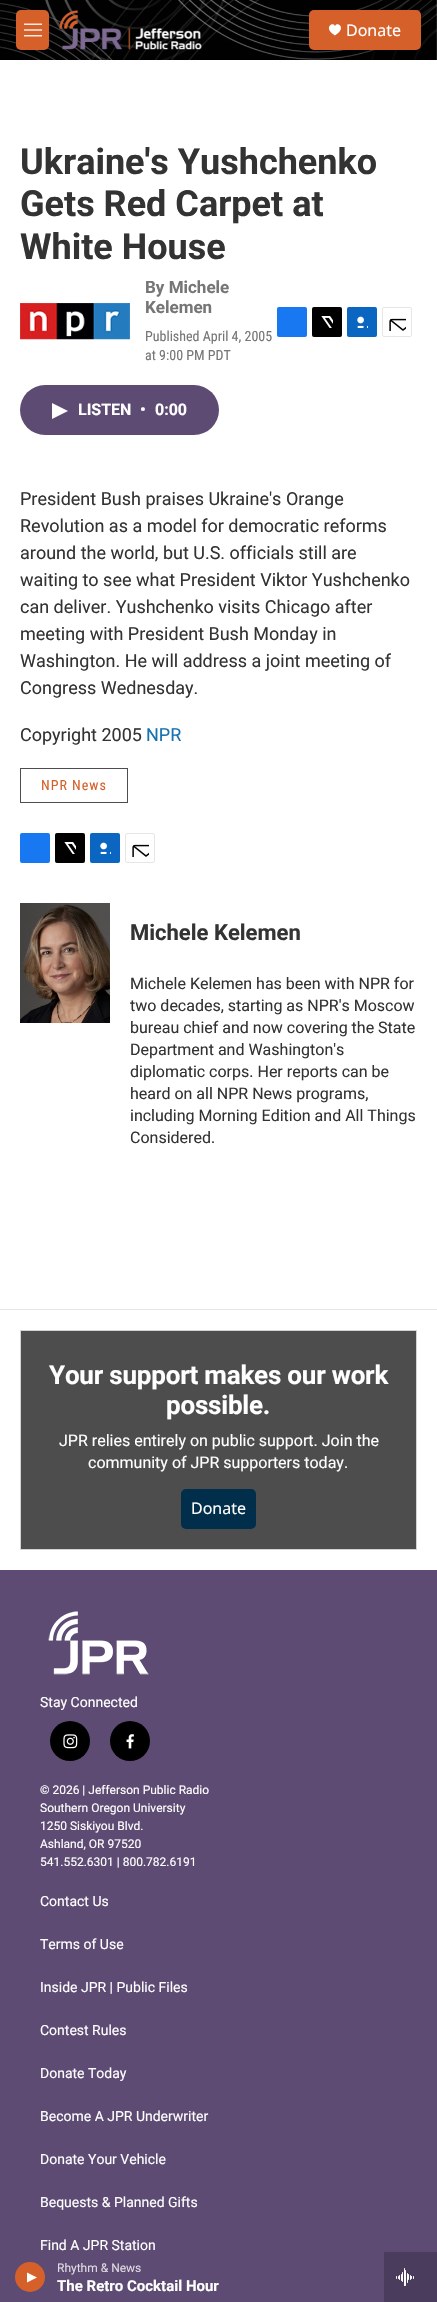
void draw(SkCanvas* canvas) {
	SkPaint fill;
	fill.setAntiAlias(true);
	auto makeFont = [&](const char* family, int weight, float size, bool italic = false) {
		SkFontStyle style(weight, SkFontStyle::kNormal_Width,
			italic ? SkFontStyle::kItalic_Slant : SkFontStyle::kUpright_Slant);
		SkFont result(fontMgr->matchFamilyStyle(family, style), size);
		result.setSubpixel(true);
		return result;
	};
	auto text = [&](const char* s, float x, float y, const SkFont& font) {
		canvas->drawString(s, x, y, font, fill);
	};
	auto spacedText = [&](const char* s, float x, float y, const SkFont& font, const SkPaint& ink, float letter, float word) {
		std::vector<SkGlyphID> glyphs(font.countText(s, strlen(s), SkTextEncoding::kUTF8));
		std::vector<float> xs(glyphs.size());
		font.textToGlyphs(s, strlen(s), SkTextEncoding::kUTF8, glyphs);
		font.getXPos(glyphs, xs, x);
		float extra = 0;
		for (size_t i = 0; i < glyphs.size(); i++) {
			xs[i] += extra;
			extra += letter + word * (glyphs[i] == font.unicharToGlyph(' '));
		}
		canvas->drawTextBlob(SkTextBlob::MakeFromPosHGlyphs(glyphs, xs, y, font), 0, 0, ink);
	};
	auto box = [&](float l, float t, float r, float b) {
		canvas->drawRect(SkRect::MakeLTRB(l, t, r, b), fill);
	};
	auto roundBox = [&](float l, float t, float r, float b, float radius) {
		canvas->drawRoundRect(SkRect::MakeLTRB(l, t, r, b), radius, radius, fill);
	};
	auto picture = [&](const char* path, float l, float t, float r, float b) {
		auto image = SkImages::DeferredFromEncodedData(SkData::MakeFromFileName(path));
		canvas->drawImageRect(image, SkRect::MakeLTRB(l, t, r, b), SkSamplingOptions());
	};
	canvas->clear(0xFFFFFFFF);
	picture("image0.png", 0, 0, 437, 60);
	fill.setColor(0xFFD5602A);
	roundBox(16, 10, 49, 50, 5);
	picture("image1.png", 24, 23, 42, 37);
	picture("image2.png", 59, 10, 202, 50);
	roundBox(309, 10, 421, 50, 5);
	fill.setColor(0xFFFFFFFF);
	canvas->drawPath(SkPathBuilder().moveTo(335, 26).cubicTo(333, 21, 322.5f, 28, 335, 35.5f).cubicTo(347.5f, 28, 337, 21, 335, 26).close().detach(), fill);
	fill.setColor(0xFF5D4B73);
	box(0, 2252, 384, 2302);
	fill.setColor(0xFFD5602A);
	canvas->drawCircle(30, 2277, 15, fill);
	fill.setColor(0xFFFFFFFF);
	canvas->drawPath(SkPathBuilder().moveTo(27, 2272.5f).lineTo(37, 2277.5f).lineTo(27, 2282.5f).close().detach(), fill);
	fill.setColor(0xFF4A3C5C);
	box(384, 2252, 437, 2302);
	picture("image3.png", 396, 2268, 414, 2286);
	picture("image4.png", 20, 303, 130, 340);
	fill.setColor(0xFF1778F2);
	roundBox(277, 307, 307, 337, 2);
	fill.setColor(0xFF000000);
	roundBox(312, 307, 342, 337, 2);
	picture("image5.png", 321, 316, 333, 328);
	fill.setColor(0xFF0A66C1);
	roundBox(347, 307, 377, 337, 2);
	picture("image6.png", 357, 316, 368, 328);
	fill.setStyle(SkPaint::kStroke_Style);
	fill.setStrokeWidth(1);
	fill.setColor(0xFFE6E6E6);
	canvas->drawRoundRect(SkRect::MakeLTRB(382.5f, 307.5f, 411.5f, 336.5f), 1.5f, 1.5f, fill);
	picture("image7.png", 389, 318, 406, 331);
	fill.setStyle(SkPaint::kFill_Style);
	fill.setColor(0xFF5D4B73);
	roundBox(20, 385, 219, 435, 25);
	fill.setColor(0xFFFFFFFF);
	canvas->drawPath(SkPathBuilder().moveTo(52, 403).lineTo(68, 411).lineTo(52, 419).close().detach(), fill);
	fill.setStyle(SkPaint::kStroke_Style);
	fill.setColor(0xFF4E4B51);
	canvas->drawRect(SkRect::MakeLTRB(20.5f, 768.5f, 127.5f, 802.5f), fill);
	fill.setStyle(SkPaint::kFill_Style);
	fill.setColor(0xFF1778F2);
	roundBox(20, 833, 50, 863, 2);
	fill.setColor(0xFF000000);
	roundBox(55, 833, 85, 863, 2);
	picture("image5.png", 64, 842, 76, 854);
	fill.setColor(0xFF0A66C1);
	roundBox(90, 833, 120, 863, 2);
	picture("image6.png", 100, 842, 111, 854);
	fill.setStyle(SkPaint::kStroke_Style);
	fill.setColor(0xFFE6E6E6);
	canvas->drawRoundRect(SkRect::MakeLTRB(125.5f, 833.5f, 154.5f, 862.5f), 1.5f, 1.5f, fill);
	picture("image7.png", 132, 844, 149, 857);
	picture("image8.png", 20, 903, 110, 1023);
	fill.setStyle(SkPaint::kFill_Style);
	box(0, 1309, 437, 1310);
	fill.setColor(0xFF4D4D4D);
	canvas->drawRect(SkRect::MakeLTRB(20.5f, 1330.5f, 416.5f, 1549.5f), fill);
	fill.setStyle(SkPaint::kStroke_Style);
	fill.setColor(0xFFD3D3D3);
	canvas->drawRect(SkRect::MakeLTRB(20.5f, 1330.5f, 416.5f, 1549.5f), fill);
	fill.setStyle(SkPaint::kFill_Style);
	fill.setColor(0xFF002E4B);
	roundBox(181, 1489, 256, 1529, 5);
	fill.setColor(0xFF5D4B73);
	box(0, 1570, 437, 2252);
	picture("image9.png", 48, 1611, 149, 1675);
	fill.setColor(0xFF000000);
	canvas->drawCircle(70, 1741, 20, fill);
	picture("image10.png", 63, 1734, 78, 1749);
	canvas->drawCircle(130, 1741, 20, fill);
	picture("image11.png", 126, 1734, 134, 1749);
	auto font1 = makeFont("Noto Sans", 400, 16);
	fill.setColor(0xFFFFFFFF);
	text("Donate", 346, 36, font1);
	auto font2 = makeFont("Roboto", 400, 12);
	fill.setColor(0xFFDFDBE3);
	text("Rhythm & News", 57, 2272, font2);
	auto font3 = makeFont("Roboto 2", 700, 15);
	fill.setColor(0xFFFFFFFF);
	text("The Retro Cocktail Hour", 57, 2291, font3);
	auto font4 = makeFont("Roboto", 700, 36);
	fill.setColor(0xFF333333);
	text("Ukraine's Yushchenko", 20, 174, font4);
	text("Gets Red Carpet at", 20, 216, font4);
	text("White House", 20, 259, font4);
	auto font5 = makeFont("Roboto", 700, 17);
	fill.setColor(0xFF767676);
	text("By Michele", 145, 293, font5);
	text("Kelemen", 145, 313, font5);
	auto font6 = makeFont("Roboto Condensed", 400, 14);
	text("Published April 4, 2005", 145, 341, font6);
	text("at 9:00 PM PDT", 145, 360, font6);
	auto font7 = makeFont("Roboto 2", 700, 16);
	fill.setColor(0xFFFFFFFF);
	text("LISTEN", 78, 415, font7);
	text("•", 140, 415, font7);
	text("0:00", 155, 415, font7);
	auto font8 = makeFont("Roboto", 400, 18);
	fill.setColor(0xFF333333);
	text("President Bush praises Ukraine's Orange", 20, 505, font8);
	text("Revolution as a model for democratic reforms", 20, 532, font8);
	text("around the world, but U.S. officials still are", 20, 559, font8);
	text("waiting to see what President Viktor Yushchenko", 20, 586, font8);
	text("can deliver. Yushchenko visits Chicago after", 20, 613, font8);
	text("meeting with President Bush Monday in", 20, 640, font8);
	text("Washington. He will address a joint meeting of", 20, 667, font8);
	text("Congress Wednesday.", 20, 694, font8);
	text("Copyright 2005", 20, 741, font8);
	fill.setColor(0xFF1772B0);
	text("NPR", 146, 741, font8);
	fill.setColor(0xFFD5602A);
	spacedText("NPR News", 41, 790, font6, fill, 1, 0);
	auto font9 = makeFont("Roboto", 700, 22);
	fill.setColor(0xFF333333);
	text("Michele Kelemen", 130, 940, font9);
	auto font10 = makeFont("Roboto", 400, 16);
	text("Michele Kelemen has been with NPR for", 130, 989, font10);
	text("two decades, starting as NPR's Moscow", 130, 1011, font10);
	text("bureau chief and now covering the State", 130, 1033, font10);
	text("Department and Washington's", 130, 1055, font10);
	text("diplomatic corps. Her reports can be", 130, 1077, font10);
	text("heard on all NPR News programs,", 130, 1099, font10);
	text("including Morning Edition and All Things", 130, 1121, font10);
	text("Considered.", 130, 1143, font10);
	auto font11 = makeFont("Roboto", 700, 26);
	fill.setColor(0xFFFFFFFF);
	spacedText("Your support makes our work", 49, 1384, font11, fill, -0.2f, 0);
	spacedText("possible.", 166, 1414, font11, fill, -0.2f, 0);
	text("JPR relies entirely on public support. Join the", 59, 1446, font10);
	text("community of JPR supporters today.", 88, 1468, font10);
	text("Donate", 191, 1514, font1);
	auto font12 = makeFont("Roboto", 400, 14);
	text("Stay Connected", 40, 1707, font12);
	text("© 2026 | Jefferson Public Radio", 40, 1794, font2);
	text("Southern Oregon University", 40, 1812, font2);
	text("1250 Siskiyou Blvd.", 40, 1830, font2);
	text("Ashland, OR 97520", 40, 1848, font2);
	text("541.552.6301 | 800.782.6191", 40, 1866, font2);
	text("Contact Us", 40, 1906, font12);
	text("Terms of Use", 40, 1949, font12);
	text("Inside JPR | Public Files", 40, 1992, font12);
	text("Contest Rules", 40, 2035, font12);
	text("Donate Today", 40, 2078, font12);
	text("Become A JPR Underwriter", 40, 2121, font12);
	text("Donate Your Vehicle", 40, 2164, font12);
	text("Bequests & Planned Gifts", 40, 2207, font12);
	text("Find A JPR Station", 40, 2250, font12);
}
